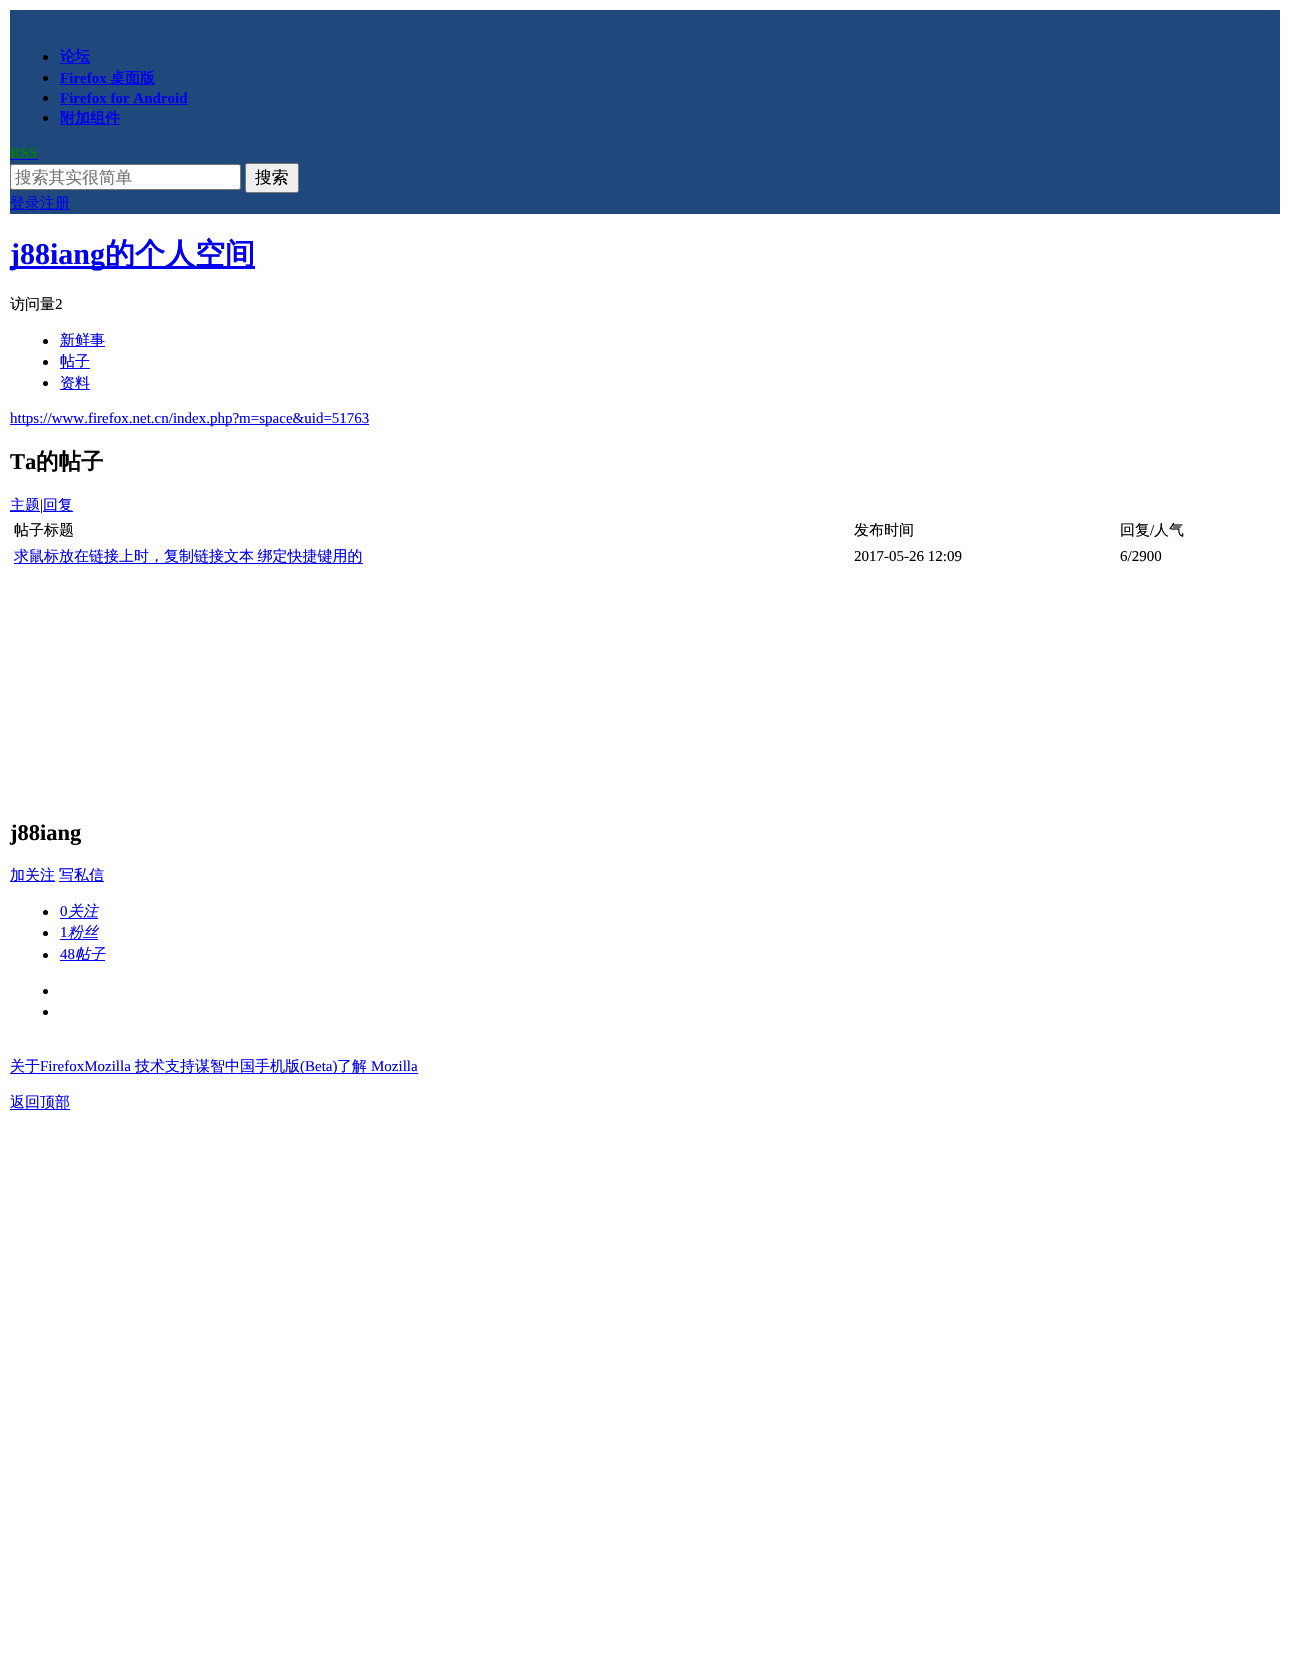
void draw(SkCanvas* canvas) {
	SkPaint fill;
	fill.setAntiAlias(true);
	auto makeFont = [&](const char* family, int weight, float size, bool italic = false) {
		SkFontStyle style(weight, SkFontStyle::kNormal_Width,
			italic ? SkFontStyle::kItalic_Slant : SkFontStyle::kUpright_Slant);
		SkFont result(fontMgr->matchFamilyStyle(family, style), size);
		result.setSubpixel(true);
		return result;
	};
	auto text = [&](const char* s, float x, float y, const SkFont& font) {
		canvas->drawString(s, x, y, font, fill);
	};
	auto spacedText = [&](const char* s, float x, float y, const SkFont& font, const SkPaint& ink, float letter, float word) {
		std::vector<SkGlyphID> glyphs(font.countText(s, strlen(s), SkTextEncoding::kUTF8));
		std::vector<float> xs(glyphs.size());
		font.textToGlyphs(s, strlen(s), SkTextEncoding::kUTF8, glyphs);
		font.getXPos(glyphs, xs, x);
		float extra = 0;
		for (size_t i = 0; i < glyphs.size(); i++) {
			xs[i] += extra;
			extra += letter + word * (glyphs[i] == font.unicharToGlyph(' '));
		}
		canvas->drawTextBlob(SkTextBlob::MakeFromPosHGlyphs(glyphs, xs, y, font), 0, 0, ink);
	};
	auto box = [&](float l, float t, float r, float b) {
		canvas->drawRect(SkRect::MakeLTRB(l, t, r, b), fill);
	};
	canvas->clear(0xFFFFFFFF);
	fill.setColor(0xFF1F497D);
	box(10, 10, 1280, 214);
	fill.setColor(0xFF000000);
	canvas->drawCircle(45.5f, 57.5f, 2.5f, fill);
	fill.setColor(0xFF0000EE);
	box(60, 63, 90, 64);
	fill.setColor(0xFF000000);
	canvas->drawCircle(45.5f, 78.5f, 2.5f, fill);
	fill.setColor(0xFF0000EE);
	box(60, 84, 155, 85);
	fill.setColor(0xFF000000);
	canvas->drawCircle(45.5f, 98.5f, 2.5f, fill);
	fill.setColor(0xFF0000EE);
	box(60, 104, 188, 105);
	fill.setColor(0xFF000000);
	canvas->drawCircle(45.5f, 118.5f, 2.5f, fill);
	fill.setColor(0xFF0000EE);
	box(60, 124, 120, 125);
	box(10, 159, 38, 160);
	fill.setColor(0xFFFFFFFF);
	canvas->drawRoundRect(SkRect::MakeLTRB(10.5f, 164.5f, 240.5f, 189.5f), 2, 2, fill);
	fill.setStyle(SkPaint::kStroke_Style);
	fill.setStrokeWidth(1);
	fill.setColor(0xFF767676);
	canvas->drawRoundRect(SkRect::MakeLTRB(10.5f, 164.5f, 240.5f, 189.5f), 2, 2, fill);
	fill.setStyle(SkPaint::kFill_Style);
	fill.setColor(0xFFEFEFEF);
	canvas->drawRoundRect(SkRect::MakeLTRB(245.5f, 163.5f, 298.5f, 192.5f), 2, 2, fill);
	fill.setStyle(SkPaint::kStroke_Style);
	fill.setColor(0xFF767676);
	canvas->drawRoundRect(SkRect::MakeLTRB(245.5f, 163.5f, 298.5f, 192.5f), 2, 2, fill);
	fill.setStyle(SkPaint::kFill_Style);
	fill.setColor(0xFF0000EE);
	box(10, 209, 70, 210);
	box(10, 266, 255, 269);
	fill.setColor(0xFF000000);
	canvas->drawCircle(45.5f, 341.5f, 2.5f, fill);
	fill.setColor(0xFF0000EE);
	box(60, 346, 105, 347);
	fill.setColor(0xFF000000);
	canvas->drawCircle(45.5f, 362.5f, 2.5f, fill);
	fill.setColor(0xFF0000EE);
	box(60, 368, 90, 369);
	fill.setColor(0xFF000000);
	canvas->drawCircle(45.5f, 383.5f, 2.5f, fill);
	fill.setColor(0xFF0000EE);
	box(60, 389, 90, 390);
	box(10, 424, 369, 425);
	box(10, 511, 40, 512);
	box(43, 511, 73, 512);
	box(14, 563, 363, 564);
	box(10, 881, 55, 882);
	box(59, 881, 104, 882);
	fill.setColor(0xFF000000);
	canvas->drawCircle(45.5f, 912.5f, 2.5f, fill);
	fill.setColor(0xFF0000EE);
	box(60, 918, 98, 919);
	fill.setColor(0xFF000000);
	canvas->drawCircle(45.5f, 933.5f, 2.5f, fill);
	fill.setColor(0xFF0000EE);
	box(60, 939, 98, 940);
	fill.setColor(0xFF000000);
	canvas->drawCircle(45.5f, 955.5f, 2.5f, fill);
	fill.setColor(0xFF0000EE);
	box(60, 960, 105, 961);
	fill.setColor(0xFF000000);
	canvas->drawCircle(45.5f, 991.5f, 2.5f, fill);
	canvas->drawCircle(45.5f, 1012.5f, 2.5f, fill);
	fill.setColor(0xFF0000EE);
	box(10, 1073, 418, 1074);
	box(10, 1109, 70, 1110);
	auto font1 = makeFont("WenQuanYi Zen Hei", 700, 15);
	text("论坛", 60, 61, font1);
	auto font2 = makeFont("Liberation Serif", 700, 15);
	text("Firefox", 60, 83, font2);
	text("桌面版", 110, 83, font1);
	text("Firefox for Android", 60, 103, font2);
	text("附加组件", 60, 123, font1);
	fill.setColor(0xFF008000);
	text("RSS", 10, 158, font2);
	auto font3 = makeFont("WenQuanYi Zen Hei", 500, 16.75f);
	fill.setColor(0xFF757575);
	text("搜索其实很简单", 15, 183, font3);
	fill.setColor(0xFF000000);
	text("搜索", 255, 183, font3);
	auto font4 = makeFont("WenQuanYi Zen Hei", 500, 15);
	fill.setColor(0xFF0000EE);
	text("登录注册", 10, 208, font4);
	auto font5 = makeFont("Liberation Serif", 700, 30);
	text("j88iang", 10, 264, font5);
	auto font6 = makeFont("WenQuanYi Zen Hei", 700, 30);
	text("的个人空间", 105, 264, font6);
	fill.setColor(0xFF000000);
	text("访问量", 10, 309, font4);
	auto font7 = makeFont("Liberation Serif", 400, 15);
	text("2", 55, 309, font7);
	fill.setColor(0xFF0000EE);
	text("新鲜事", 60, 345, font4);
	text("帖子", 60, 366, font4);
	text("资料", 60, 388, font4);
	text("https://www.firefox.net.cn/index.php?m=space&uid=51763", 10, 423, font7);
	auto font8 = makeFont("Liberation Serif", 700, 22.5f);
	fill.setColor(0xFF000000);
	text("Ta", 10, 469, font8);
	auto font9 = makeFont("WenQuanYi Zen Hei", 700, 22.5f);
	text("的帖子", 36, 469, font9);
	fill.setColor(0xFF0000EE);
	text("主题", 10, 510, font4);
	fill.setColor(0xFF000000);
	text("|", 40, 510, font7);
	fill.setColor(0xFF0000EE);
	text("回复", 43, 510, font4);
	fill.setColor(0xFF000000);
	text("帖子标题", 14, 535, font4);
	text("发布时间", 854, 535, font4);
	text("回复", 1120, 535, font4);
	text("/", 1150, 535, font7);
	text("人气", 1154, 535, font4);
	fill.setColor(0xFF0000EE);
	spacedText("求鼠标放在链接上时，复制链接文本 绑定快捷键用的", 14, 561, font4, fill, 0, -1);
	fill.setColor(0xFF000000);
	text("2017-05-26 12:09", 854, 561, font7);
	text("6/2900", 1120, 561, font7);
	text("j88iang", 10, 840, font8);
	fill.setColor(0xFF0000EE);
	text("加关注", 10, 880, font4);
	text("写私信", 59, 880, font4);
	text("0", 60, 916, font7);
	auto font10 = makeFont("WenQuanYi Zen Hei", 500, 15, true);
	text("关注", 68, 916, font10);
	text("1", 60, 937, font7);
	text("粉丝", 68, 937, font10);
	text("48", 60, 959, font7);
	text("帖子", 75, 959, font10);
	text("关于", 10, 1071, font4);
	text("FirefoxMozilla", 40, 1071, font7);
	text("技术支持谋智中国手机版", 135, 1071, font4);
	text("(Beta)", 300, 1071, font7);
	text("了解", 337, 1071, font4);
	text("Mozilla", 371, 1071, font7);
	text("返回顶部", 10, 1107, font4);
}
